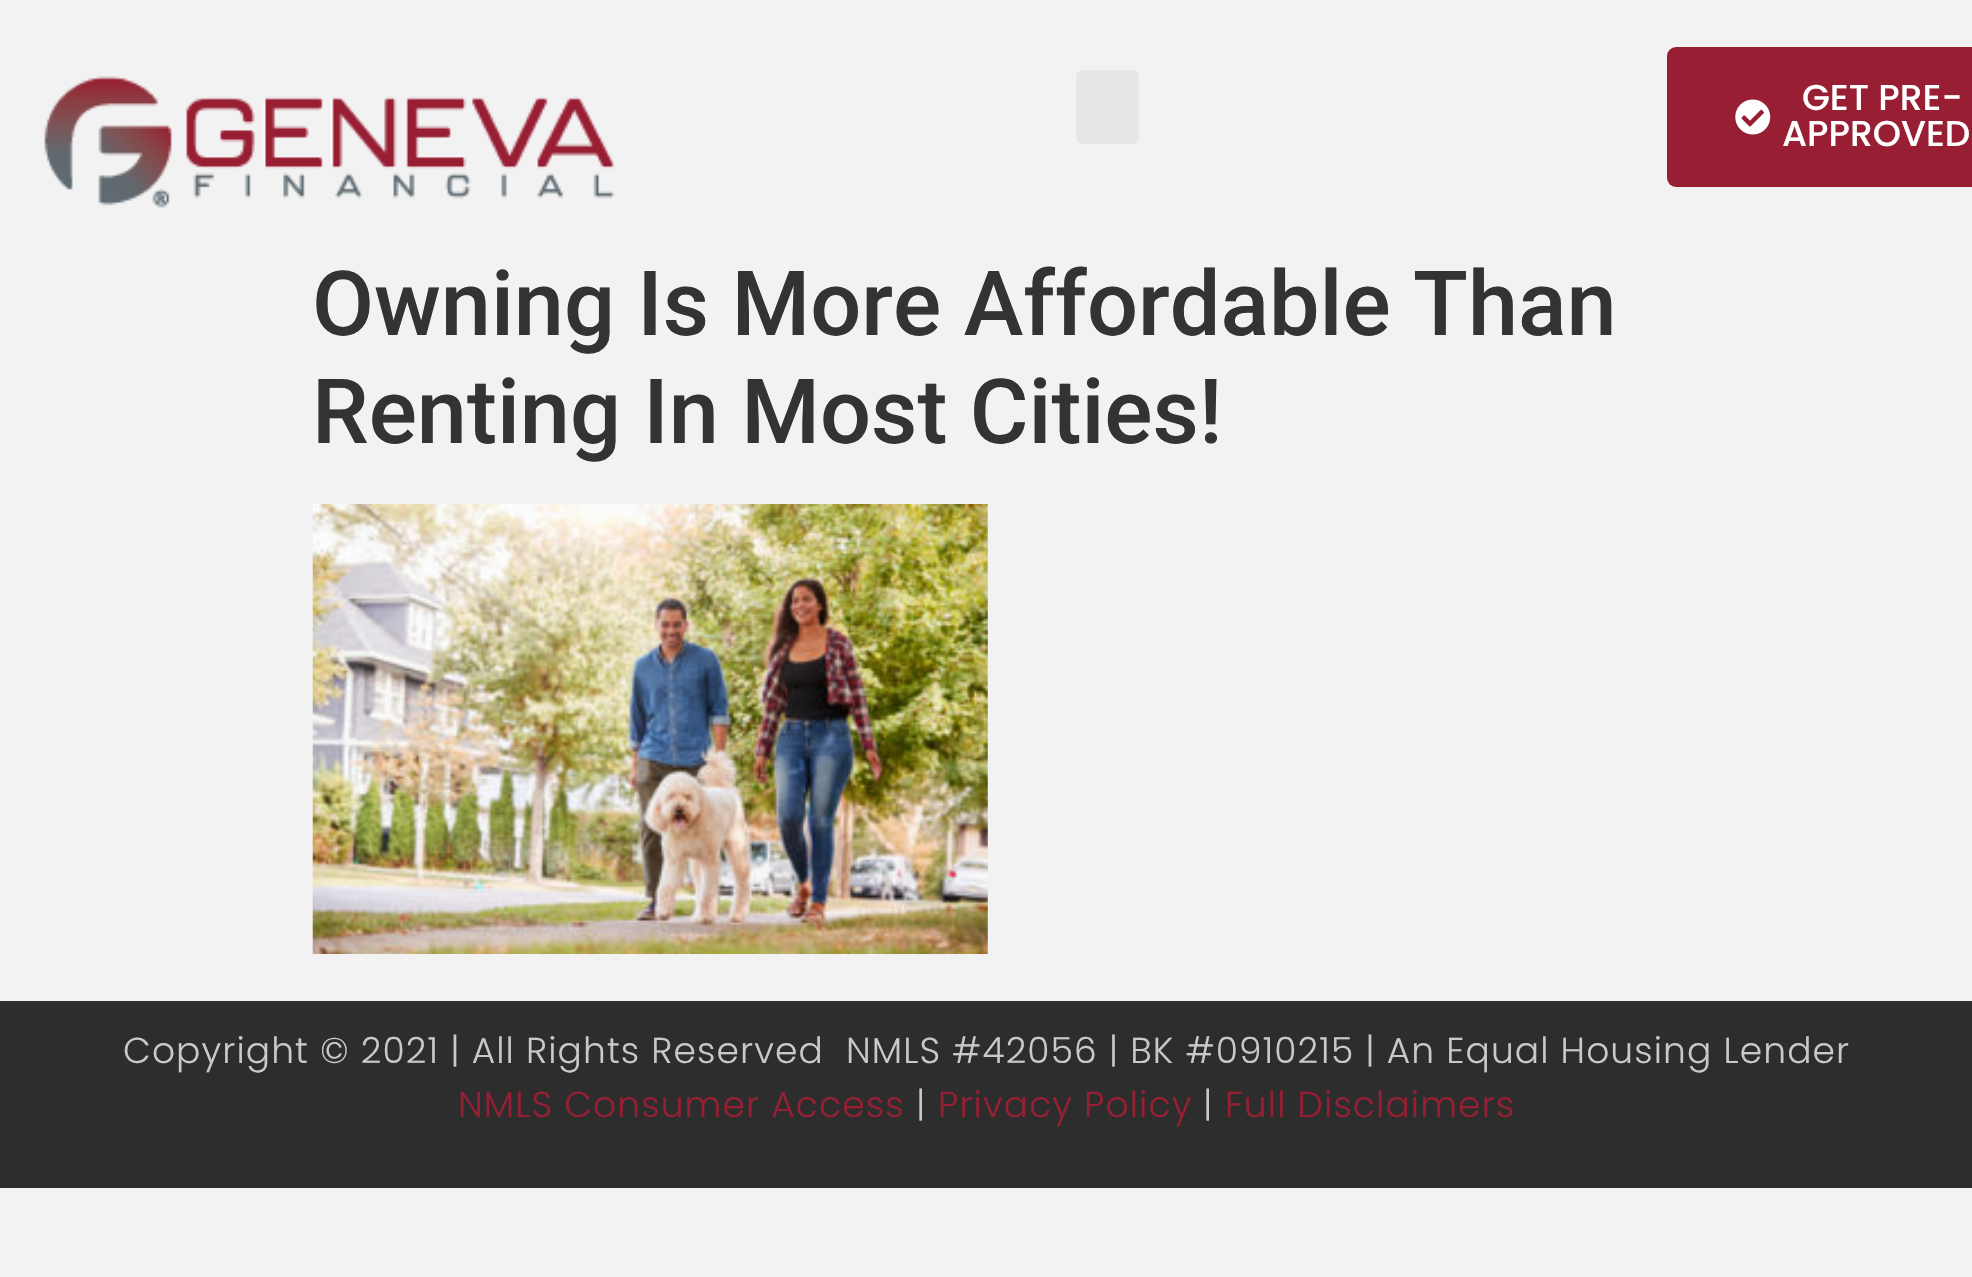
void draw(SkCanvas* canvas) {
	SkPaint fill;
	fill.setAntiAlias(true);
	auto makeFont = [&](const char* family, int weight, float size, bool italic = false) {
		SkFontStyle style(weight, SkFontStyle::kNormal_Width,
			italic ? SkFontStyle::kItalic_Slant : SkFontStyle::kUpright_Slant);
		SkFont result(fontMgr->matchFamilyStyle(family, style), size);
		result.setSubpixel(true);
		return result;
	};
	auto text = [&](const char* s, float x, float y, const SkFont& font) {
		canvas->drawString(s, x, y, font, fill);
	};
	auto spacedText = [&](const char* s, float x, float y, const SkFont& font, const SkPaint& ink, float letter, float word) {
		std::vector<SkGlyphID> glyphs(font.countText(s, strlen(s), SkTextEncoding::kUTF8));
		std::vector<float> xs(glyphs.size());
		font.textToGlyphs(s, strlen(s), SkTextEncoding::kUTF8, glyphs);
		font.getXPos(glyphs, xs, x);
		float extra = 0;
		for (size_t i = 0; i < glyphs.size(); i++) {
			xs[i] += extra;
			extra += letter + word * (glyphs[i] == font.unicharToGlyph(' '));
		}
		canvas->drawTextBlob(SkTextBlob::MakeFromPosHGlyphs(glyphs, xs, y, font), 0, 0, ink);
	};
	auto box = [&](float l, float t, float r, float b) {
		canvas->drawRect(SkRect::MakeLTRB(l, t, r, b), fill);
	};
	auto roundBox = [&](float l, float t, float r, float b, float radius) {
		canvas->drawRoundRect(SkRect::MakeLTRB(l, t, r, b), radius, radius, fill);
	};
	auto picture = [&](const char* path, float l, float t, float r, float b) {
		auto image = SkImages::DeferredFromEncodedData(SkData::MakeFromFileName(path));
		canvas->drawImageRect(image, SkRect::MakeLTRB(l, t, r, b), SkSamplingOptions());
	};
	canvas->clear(0xFFF2F2F2);
	picture("image0.png", 44, 76, 615, 208);
	fill.setColor(0xFFE6E6E6);
	roundBox(1076, 70, 1139, 144, 7);
	fill.setColor(0xFF981F33);
	roundBox(1667, 47, 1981, 187, 9);
	picture("image1.png", 1735, 99, 1771, 135);
	picture("image2.png", 312, 504, 988, 954);
	fill.setColor(0xFF2D2D2D);
	box(0, 1001, 1972, 1188);
	auto font1 = makeFont("Poppins", 500, 36);
	fill.setColor(0xFFFFFFFF);
	text("GET PRE-", 1802, 110, font1);
	text("APPROVED", 1782, 146, font1);
	auto font2 = makeFont("Roboto", 500, 90);
	fill.setColor(0xFF333333);
	text("Owning Is More Affordable Than", 312, 335, font2);
	text("Renting In Most Cities!", 312, 443, font2);
	auto font3 = makeFont("Poppins", 300, 36);
	fill.setColor(0xFFC9C9C9);
	spacedText("Copyright © 2021 | All Rights Reserved  NMLS #42056 | BK #0910215 | An Equal Housing Lender", 123, 1063, font3, fill, 1.12f, 0);
	fill.setColor(0xFF981F33);
	spacedText("NMLS Consumer Access", 458, 1117, font3, fill, 1.12f, 0);
	fill.setColor(0xFFC9C9C9);
	spacedText("|", 916, 1117, font3, fill, 1.12f, 0);
	fill.setColor(0xFF981F33);
	spacedText("Privacy Policy", 938, 1117, font3, fill, 1.12f, 0);
	fill.setColor(0xFFC9C9C9);
	spacedText("|", 1203, 1117, font3, fill, 1.12f, 0);
	fill.setColor(0xFF981F33);
	spacedText("Full Disclaimers", 1225, 1117, font3, fill, 1.12f, 0);
}
